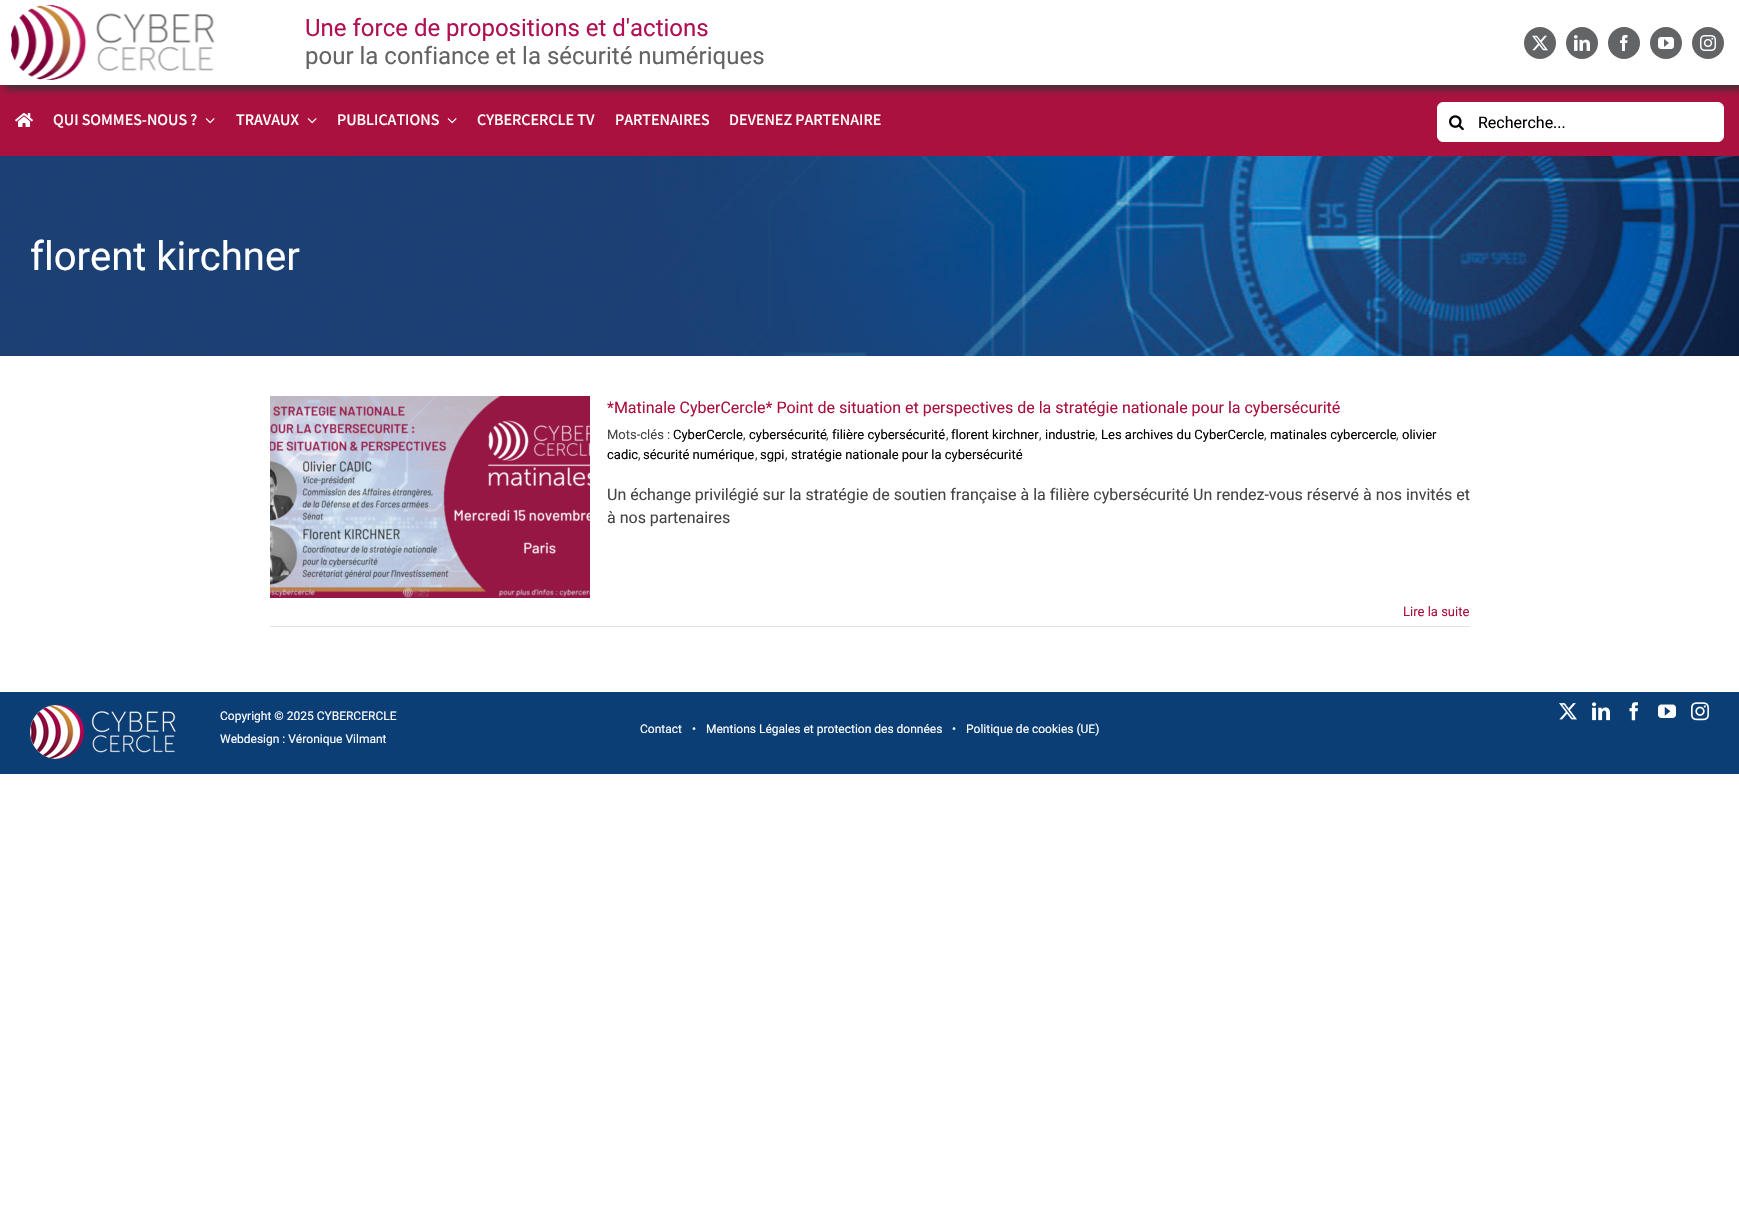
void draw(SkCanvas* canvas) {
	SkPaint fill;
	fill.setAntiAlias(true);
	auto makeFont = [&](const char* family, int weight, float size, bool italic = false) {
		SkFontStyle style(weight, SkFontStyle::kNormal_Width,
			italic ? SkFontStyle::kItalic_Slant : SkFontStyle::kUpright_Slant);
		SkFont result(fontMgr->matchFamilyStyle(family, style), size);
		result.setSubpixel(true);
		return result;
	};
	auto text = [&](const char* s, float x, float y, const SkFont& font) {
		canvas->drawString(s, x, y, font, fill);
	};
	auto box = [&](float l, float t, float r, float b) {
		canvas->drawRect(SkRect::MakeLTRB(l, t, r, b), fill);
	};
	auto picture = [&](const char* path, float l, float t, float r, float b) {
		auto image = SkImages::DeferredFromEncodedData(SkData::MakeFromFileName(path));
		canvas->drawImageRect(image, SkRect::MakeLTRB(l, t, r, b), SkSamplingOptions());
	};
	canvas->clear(0xFFFFFFFF);
	fill.setColor(0xFFAB113E);
	box(0, 85, 1739, 156);
	canvas->save();
	canvas->clipRect(SkRect::MakeLTRB(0, 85, 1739, 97));
	fill.setColor(0xFF333333);
	fill.setMaskFilter(SkMaskFilter::MakeBlur(kNormal_SkBlurStyle, 4));
	canvas->drawRect(SkRect::MakeLTRB(5, 4, 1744, 89), fill);
	fill.setMaskFilter(nullptr);
	canvas->restore();
	picture("image0.png", 11, 5, 214, 80);
	fill.setColor(0xFF636466);
	canvas->drawCircle(1540, 43, 16, fill);
	picture("image1.png", 1532, 35, 1548, 51);
	canvas->drawCircle(1582, 43, 16, fill);
	picture("image2.png", 1574, 35, 1590, 51);
	canvas->drawCircle(1624, 43, 16, fill);
	picture("image3.png", 1620, 35, 1628, 51);
	canvas->drawCircle(1666, 43, 16, fill);
	picture("image4.png", 1658, 37, 1674, 49);
	canvas->drawCircle(1708, 43, 16, fill);
	picture("image5.png", 1700, 35, 1716, 51);
	picture("image6.png", 15, 113, 33, 127);
	picture("image7.png", 205, 118, 215, 124);
	picture("image7.png", 307, 118, 317, 124);
	picture("image7.png", 447, 118, 457, 124);
	fill.setColor(0xFFFFFFFF);
	canvas->drawRoundRect(SkRect::MakeLTRB(1437.5f, 102.5f, 1723.5f, 141.5f), 5.5f, 5.5f, fill);
	fill.setStyle(SkPaint::kStroke_Style);
	fill.setStrokeWidth(1);
	canvas->drawRoundRect(SkRect::MakeLTRB(1437.5f, 102.5f, 1723.5f, 141.5f), 5.5f, 5.5f, fill);
	picture("image8.png", 1449, 115, 1464, 131);
	picture("image9.png", 0, 156, 1739, 356);
	picture("image10.png", 270, 396, 590, 598);
	fill.setStyle(SkPaint::kFill_Style);
	fill.setColor(0xFFE2E2E2);
	box(270, 626, 1470, 627);
	fill.setColor(0xFF0B3E75);
	box(0, 692, 1739, 774);
	picture("image11.png", 30, 705, 176, 759);
	picture("image12.png", 1559, 703, 1577, 720);
	picture("image13.png", 1592, 702, 1610, 721);
	picture("image14.png", 1629, 702, 1638, 721);
	picture("image15.png", 1658, 704, 1676, 718);
	picture("image16.png", 1691, 702, 1709, 721);
	auto font1 = makeFont("Roboto", 400, 24);
	fill.setColor(0xFFB01154);
	text("Une force de propositions et d'actions", 305, 36, font1);
	fill.setColor(0xFF636466);
	text("pour la confiance et la sécurité numériques", 305, 64, font1);
	auto font2 = makeFont("Assistant", 600, 16);
	fill.setColor(0xFFFFFFFF);
	text("QUI SOMMES-NOUS ?", 53, 125, font2);
	text("TRAVAUX", 236, 125, font2);
	text("PUBLICATIONS", 337, 125, font2);
	text("CYBERCERCLE TV", 477, 125, font2);
	text("PARTENAIRES", 615, 125, font2);
	text("DEVENEZ PARTENAIRE", 729, 125, font2);
	auto font3 = makeFont("Roboto", 400, 16);
	fill.setColor(0xFF000000);
	text("Recherche...", 1478, 128, font3);
	auto font4 = makeFont("Roboto", 400, 40);
	fill.setColor(0xFFFFFFFF);
	text("florent kirchner", 30, 270, font4);
	fill.setColor(0xFFAB113E);
	text("*Matinale CyberCercle* Point de situation et perspectives de la stratégie nationale pour la cybersécurité", 607, 413, font3);
	auto font5 = makeFont("Roboto", 400, 13);
	fill.setColor(0xFF444444);
	text("Mots-clés :", 607, 439, font5);
	fill.setColor(0xFF000000);
	text("CyberCercle", 673, 439, font5);
	fill.setColor(0xFF444444);
	text(",", 743, 439, font5);
	fill.setColor(0xFF000000);
	text("cybersécurité", 749, 439, font5);
	fill.setColor(0xFF444444);
	text(",", 826, 439, font5);
	fill.setColor(0xFF000000);
	text("filière cybersécurité", 832, 439, font5);
	fill.setColor(0xFF444444);
	text(",", 946, 439, font5);
	fill.setColor(0xFF000000);
	text("florent kirchner", 951, 439, font5);
	fill.setColor(0xFF444444);
	text(",", 1039, 439, font5);
	fill.setColor(0xFF000000);
	text("industrie", 1045, 439, font5);
	fill.setColor(0xFF444444);
	text(",", 1095, 439, font5);
	fill.setColor(0xFF000000);
	text("Les archives du CyberCercle", 1101, 439, font5);
	fill.setColor(0xFF444444);
	text(",", 1264, 439, font5);
	fill.setColor(0xFF000000);
	text("matinales cybercercle", 1270, 439, font5);
	fill.setColor(0xFF444444);
	text(",", 1396, 439, font5);
	fill.setColor(0xFF000000);
	text("olivier", 1402, 439, font5);
	text("cadic", 607, 459, font5);
	fill.setColor(0xFF444444);
	text(",", 638, 459, font5);
	fill.setColor(0xFF000000);
	text("sécurité numérique", 643, 459, font5);
	fill.setColor(0xFF444444);
	text(",", 755, 459, font5);
	fill.setColor(0xFF000000);
	text("sgpi", 760, 459, font5);
	fill.setColor(0xFF444444);
	text(",", 785, 459, font5);
	fill.setColor(0xFF000000);
	text("stratégie nationale pour la cybersécurité", 791, 459, font5);
	fill.setColor(0xFF444444);
	text("Un échange privilégié sur la stratégie de soutien française à la filière cybersécurité Un rendez-vous réservé à nos invités et", 607, 500, font3);
	text("à nos partenaires", 607, 523, font3);
	fill.setColor(0xFFAB113E);
	text("Lire la suite", 1403, 616, font5);
	auto font6 = makeFont("Roboto", 400, 12);
	fill.setColor(0xFFFFFFFF);
	text("Copyright © 2025 CYBERCERCLE", 220, 720, font6);
	text("Webdesign : Véronique Vilmant", 220, 743, font6);
	text("Contact", 640, 733, font6);
	text("•", 692, 733, font6);
	text("Mentions Légales et protection des données", 706, 733, font6);
	text("•", 952, 733, font6);
	text("Politique de cookies (UE)", 966, 733, font6);
}
